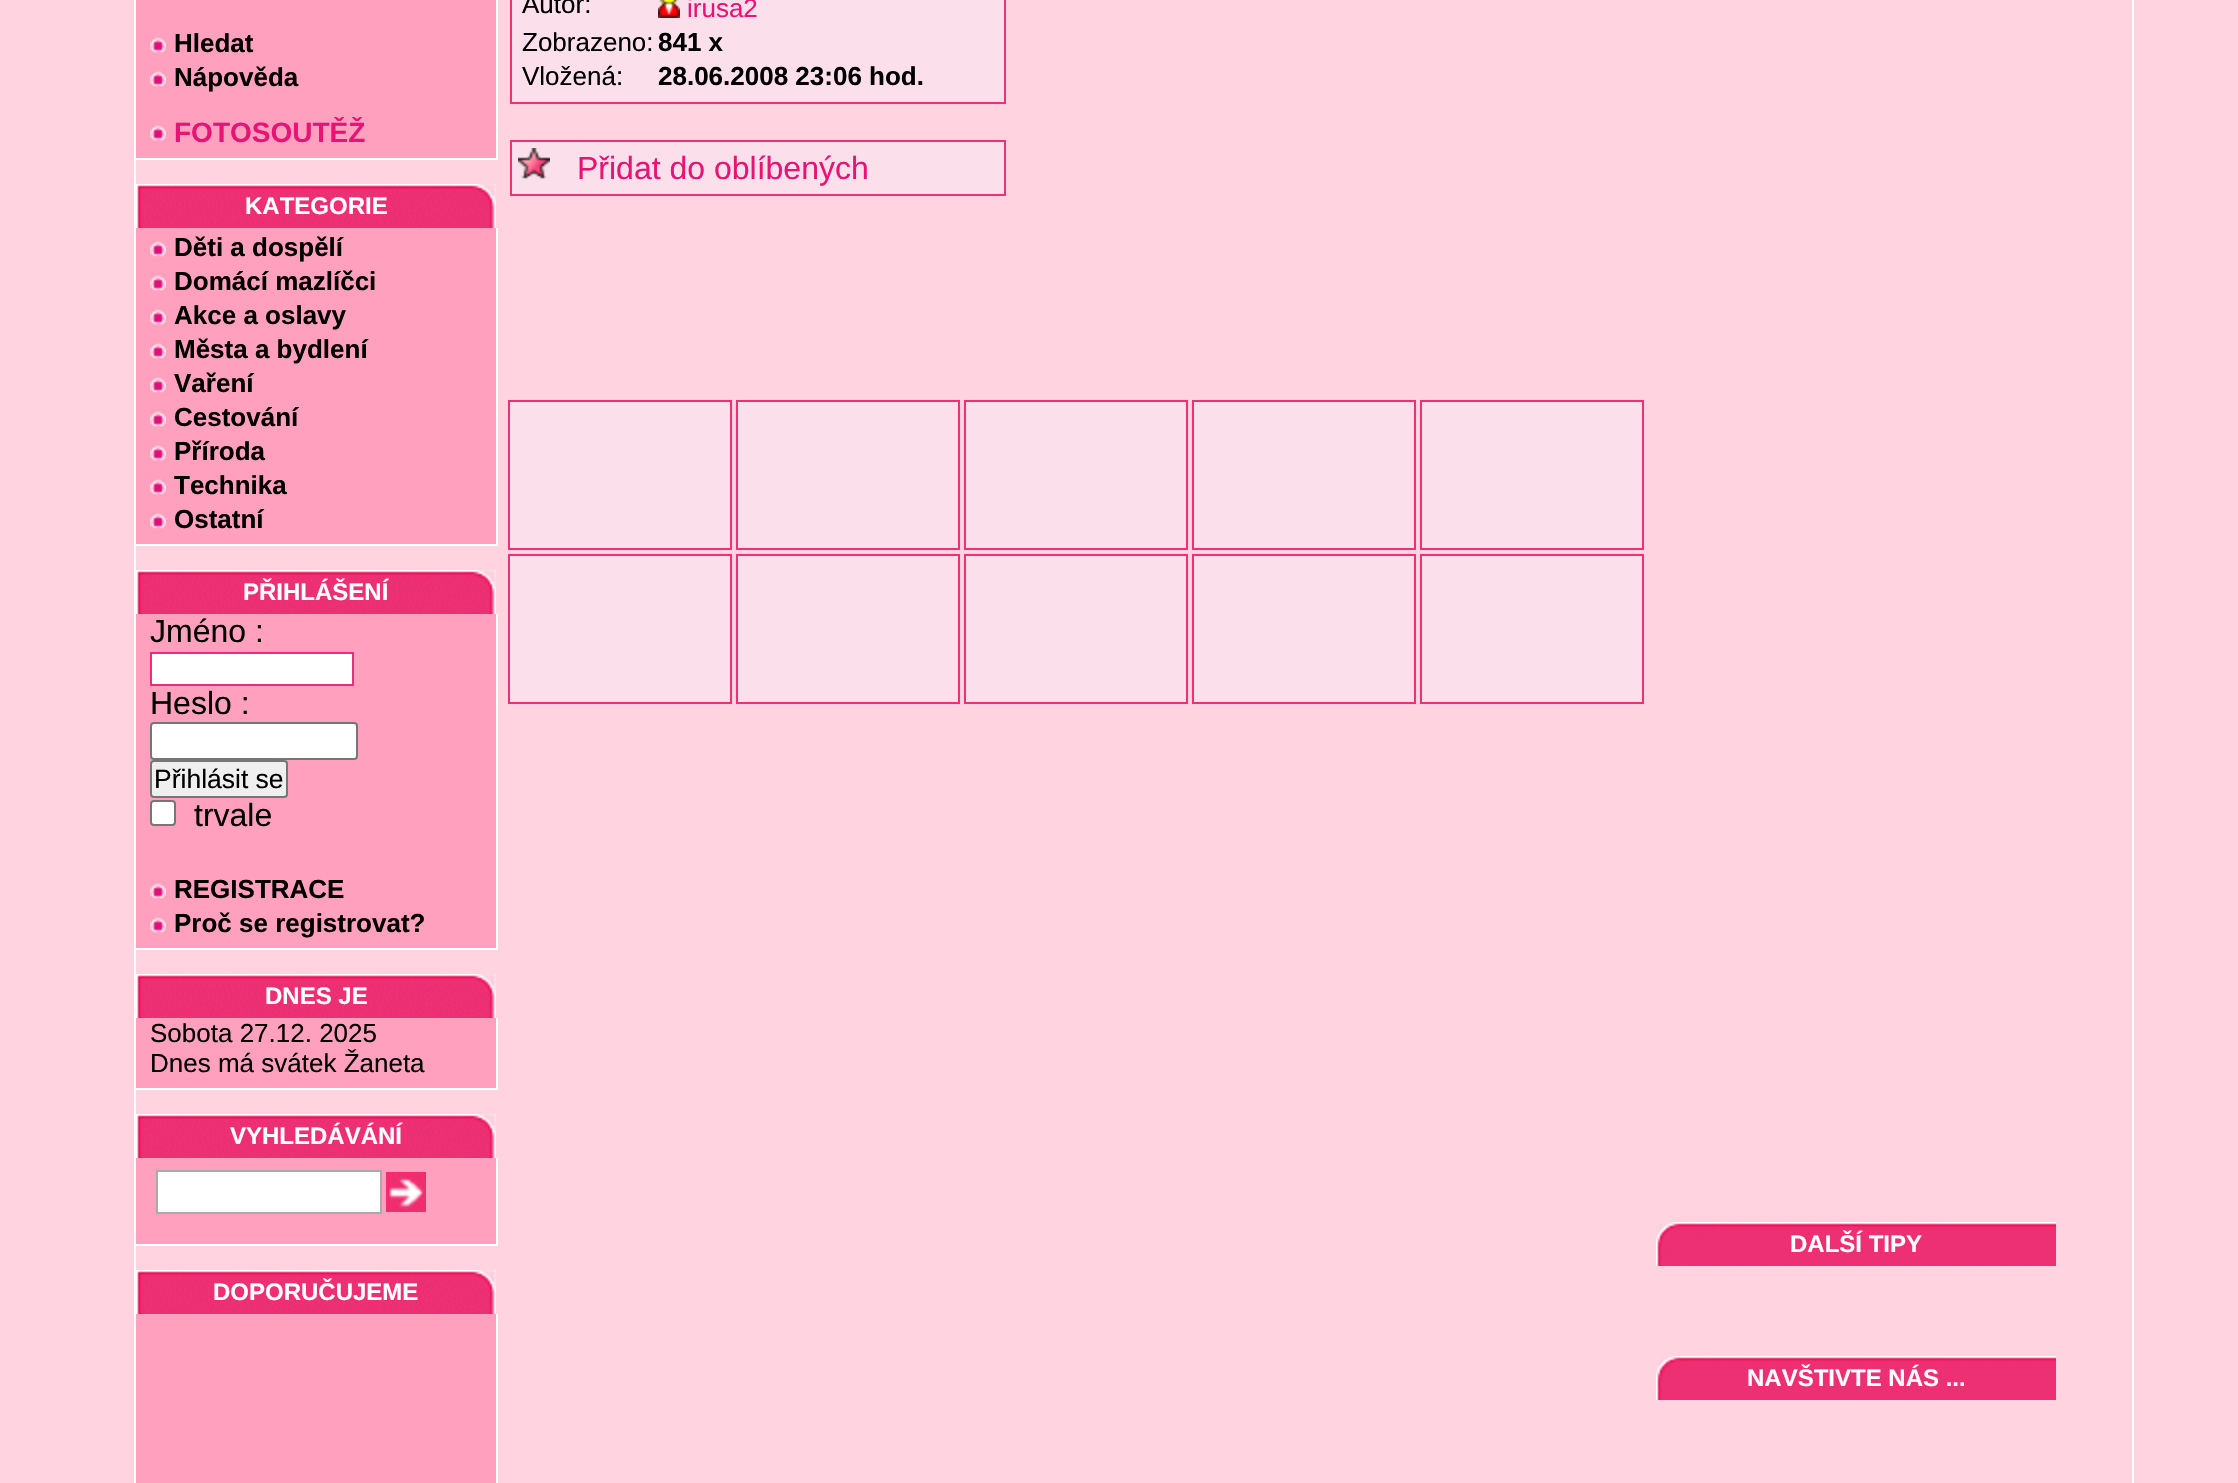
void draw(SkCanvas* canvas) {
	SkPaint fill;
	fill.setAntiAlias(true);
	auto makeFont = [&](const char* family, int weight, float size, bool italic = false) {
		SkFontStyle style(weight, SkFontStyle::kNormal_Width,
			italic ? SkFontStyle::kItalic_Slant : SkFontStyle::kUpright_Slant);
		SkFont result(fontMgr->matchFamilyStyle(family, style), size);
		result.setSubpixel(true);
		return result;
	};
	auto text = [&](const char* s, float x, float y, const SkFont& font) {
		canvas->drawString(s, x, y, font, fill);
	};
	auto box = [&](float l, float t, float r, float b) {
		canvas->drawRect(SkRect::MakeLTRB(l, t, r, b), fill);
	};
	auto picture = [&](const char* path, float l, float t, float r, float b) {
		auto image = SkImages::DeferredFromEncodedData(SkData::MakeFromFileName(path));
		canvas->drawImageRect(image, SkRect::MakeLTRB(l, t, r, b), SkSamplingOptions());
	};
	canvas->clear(0xFFFFD3DF);
	fill.setStyle(SkPaint::kStroke_Style);
	fill.setStrokeWidth(2);
	fill.setColor(0xFFFFFFFF);
	canvas->drawRect(SkRect::MakeLTRB(135, -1, 2133, 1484), fill);
	fill.setStyle(SkPaint::kFill_Style);
	fill.setColor(0xFFFFA0BF);
	box(136, 0, 496, 158);
	fill.setColor(0xFFFFFFFF);
	box(496, 0, 498, 160);
	box(136, 158, 498, 160);
	picture("image0.png", 150, 37, 166, 53);
	picture("image0.png", 150, 71, 166, 87);
	picture("image0.png", 150, 125, 166, 141);
	picture("image1.png", 136, 184, 496, 228);
	fill.setColor(0xFFFFA0BF);
	box(136, 228, 496, 544);
	fill.setColor(0xFFFFFFFF);
	box(496, 228, 498, 546);
	box(136, 544, 498, 546);
	picture("image0.png", 150, 241, 166, 257);
	picture("image0.png", 150, 275, 166, 291);
	picture("image0.png", 150, 309, 166, 325);
	picture("image0.png", 150, 343, 166, 359);
	picture("image0.png", 150, 377, 166, 393);
	picture("image0.png", 150, 411, 166, 427);
	picture("image0.png", 150, 445, 166, 461);
	picture("image0.png", 150, 479, 166, 495);
	picture("image0.png", 150, 513, 166, 529);
	picture("image1.png", 136, 570, 496, 614);
	fill.setColor(0xFFFFA0BF);
	box(136, 614, 496, 948);
	fill.setColor(0xFFFFFFFF);
	box(496, 614, 498, 950);
	box(136, 948, 498, 950);
	canvas->drawRect(SkRect::MakeLTRB(151, 653, 353, 685), fill);
	fill.setStyle(SkPaint::kStroke_Style);
	fill.setColor(0xFFEF2C75);
	canvas->drawRect(SkRect::MakeLTRB(151, 653, 353, 685), fill);
	fill.setStyle(SkPaint::kFill_Style);
	fill.setColor(0xFFFFFFFF);
	canvas->drawRoundRect(SkRect::MakeLTRB(151, 723, 357, 759), 3, 3, fill);
	fill.setStyle(SkPaint::kStroke_Style);
	fill.setColor(0xFF767676);
	canvas->drawRoundRect(SkRect::MakeLTRB(151, 723, 357, 759), 3, 3, fill);
	fill.setStyle(SkPaint::kFill_Style);
	fill.setColor(0xFFEFEFEF);
	canvas->drawRoundRect(SkRect::MakeLTRB(151, 761, 287, 797), 3, 3, fill);
	fill.setStyle(SkPaint::kStroke_Style);
	fill.setColor(0xFF767676);
	canvas->drawRoundRect(SkRect::MakeLTRB(151, 761, 287, 797), 3, 3, fill);
	fill.setStyle(SkPaint::kFill_Style);
	fill.setColor(0xFFFFFFFF);
	canvas->drawRoundRect(SkRect::MakeLTRB(151, 801, 175, 825), 3, 3, fill);
	fill.setStyle(SkPaint::kStroke_Style);
	fill.setColor(0xFF767676);
	canvas->drawRoundRect(SkRect::MakeLTRB(151, 801, 175, 825), 3, 3, fill);
	picture("image0.png", 150, 883, 166, 899);
	picture("image0.png", 150, 917, 166, 933);
	picture("image1.png", 136, 974, 496, 1018);
	fill.setStyle(SkPaint::kFill_Style);
	fill.setColor(0xFFFFA0BF);
	box(136, 1018, 496, 1088);
	fill.setColor(0xFFFFFFFF);
	box(496, 1018, 498, 1090);
	box(136, 1088, 498, 1090);
	picture("image1.png", 136, 1114, 496, 1158);
	fill.setColor(0xFFFFA0BF);
	box(136, 1158, 496, 1244);
	fill.setColor(0xFFFFFFFF);
	box(496, 1158, 498, 1246);
	box(136, 1244, 498, 1246);
	canvas->drawRect(SkRect::MakeLTRB(157, 1171, 381, 1213), fill);
	fill.setStyle(SkPaint::kStroke_Style);
	fill.setColor(0xFFAAAAAA);
	canvas->drawRect(SkRect::MakeLTRB(157, 1171, 381, 1213), fill);
	picture("image2.png", 386, 1172, 426, 1212);
	picture("image1.png", 136, 1270, 496, 1314);
	fill.setStyle(SkPaint::kFill_Style);
	fill.setColor(0xFFFFA0BF);
	box(136, 1314, 496, 1483);
	fill.setColor(0xFFFFFFFF);
	box(496, 1314, 498, 1483);
	fill.setColor(0xFFFBDFEB);
	canvas->drawRect(SkRect::MakeLTRB(511, -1, 1005, 103), fill);
	fill.setStyle(SkPaint::kStroke_Style);
	fill.setColor(0xFFEF3173);
	canvas->drawRect(SkRect::MakeLTRB(511, -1, 1005, 103), fill);
	picture("image3.png", 658, 0, 680, 18);
	fill.setStyle(SkPaint::kFill_Style);
	fill.setColor(0xFFFBDFEB);
	canvas->drawRect(SkRect::MakeLTRB(511, 141, 1005, 195), fill);
	fill.setStyle(SkPaint::kStroke_Style);
	fill.setColor(0xFFEF3173);
	canvas->drawRect(SkRect::MakeLTRB(511, 141, 1005, 195), fill);
	picture("image4.png", 518, 148, 550, 179);
	fill.setStyle(SkPaint::kFill_Style);
	fill.setColor(0xFFFBDFEB);
	canvas->drawRect(SkRect::MakeLTRB(509, 401, 731, 549), fill);
	fill.setStyle(SkPaint::kStroke_Style);
	fill.setColor(0xFFEF3173);
	canvas->drawRect(SkRect::MakeLTRB(509, 401, 731, 549), fill);
	fill.setStyle(SkPaint::kFill_Style);
	fill.setColor(0xFFFBDFEB);
	canvas->drawRect(SkRect::MakeLTRB(737, 401, 959, 549), fill);
	fill.setStyle(SkPaint::kStroke_Style);
	fill.setColor(0xFFEF3173);
	canvas->drawRect(SkRect::MakeLTRB(737, 401, 959, 549), fill);
	fill.setStyle(SkPaint::kFill_Style);
	fill.setColor(0xFFFBDFEB);
	canvas->drawRect(SkRect::MakeLTRB(965, 401, 1187, 549), fill);
	fill.setStyle(SkPaint::kStroke_Style);
	fill.setColor(0xFFEF3173);
	canvas->drawRect(SkRect::MakeLTRB(965, 401, 1187, 549), fill);
	fill.setStyle(SkPaint::kFill_Style);
	fill.setColor(0xFFFBDFEB);
	canvas->drawRect(SkRect::MakeLTRB(1193, 401, 1415, 549), fill);
	fill.setStyle(SkPaint::kStroke_Style);
	fill.setColor(0xFFEF3173);
	canvas->drawRect(SkRect::MakeLTRB(1193, 401, 1415, 549), fill);
	fill.setStyle(SkPaint::kFill_Style);
	fill.setColor(0xFFFBDFEB);
	canvas->drawRect(SkRect::MakeLTRB(1421, 401, 1643, 549), fill);
	fill.setStyle(SkPaint::kStroke_Style);
	fill.setColor(0xFFEF3173);
	canvas->drawRect(SkRect::MakeLTRB(1421, 401, 1643, 549), fill);
	fill.setStyle(SkPaint::kFill_Style);
	fill.setColor(0xFFFBDFEB);
	canvas->drawRect(SkRect::MakeLTRB(509, 555, 731, 703), fill);
	fill.setStyle(SkPaint::kStroke_Style);
	fill.setColor(0xFFEF3173);
	canvas->drawRect(SkRect::MakeLTRB(509, 555, 731, 703), fill);
	fill.setStyle(SkPaint::kFill_Style);
	fill.setColor(0xFFFBDFEB);
	canvas->drawRect(SkRect::MakeLTRB(737, 555, 959, 703), fill);
	fill.setStyle(SkPaint::kStroke_Style);
	fill.setColor(0xFFEF3173);
	canvas->drawRect(SkRect::MakeLTRB(737, 555, 959, 703), fill);
	fill.setStyle(SkPaint::kFill_Style);
	fill.setColor(0xFFFBDFEB);
	canvas->drawRect(SkRect::MakeLTRB(965, 555, 1187, 703), fill);
	fill.setStyle(SkPaint::kStroke_Style);
	fill.setColor(0xFFEF3173);
	canvas->drawRect(SkRect::MakeLTRB(965, 555, 1187, 703), fill);
	fill.setStyle(SkPaint::kFill_Style);
	fill.setColor(0xFFFBDFEB);
	canvas->drawRect(SkRect::MakeLTRB(1193, 555, 1415, 703), fill);
	fill.setStyle(SkPaint::kStroke_Style);
	fill.setColor(0xFFEF3173);
	canvas->drawRect(SkRect::MakeLTRB(1193, 555, 1415, 703), fill);
	fill.setStyle(SkPaint::kFill_Style);
	fill.setColor(0xFFFBDFEB);
	canvas->drawRect(SkRect::MakeLTRB(1421, 555, 1643, 703), fill);
	fill.setStyle(SkPaint::kStroke_Style);
	fill.setColor(0xFFEF3173);
	canvas->drawRect(SkRect::MakeLTRB(1421, 555, 1643, 703), fill);
	picture("image5.png", 1656, 1222, 2056, 1266);
	picture("image5.png", 1656, 1356, 2056, 1400);
	auto font1 = makeFont("Liberation Sans", 700, 26);
	fill.setStyle(SkPaint::kFill_Style);
	fill.setColor(0xFF000000);
	text("Hledat", 174, 52, font1);
	text("Nápověda", 174, 86, font1);
	auto font2 = makeFont("Liberation Sans", 700, 28);
	fill.setColor(0xFFE71375);
	text("FOTOSOUTĚŽ", 174, 142, font2);
	auto font3 = makeFont("Liberation Sans", 700, 24);
	fill.setColor(0xFFFFFFFF);
	text("KATEGORIE", 245, 214, font3);
	fill.setColor(0xFF000000);
	text("Děti a dospělí", 174, 256, font1);
	text("Domácí mazlíčci", 174, 290, font1);
	text("Akce a oslavy", 174, 324, font1);
	text("Města a bydlení", 174, 358, font1);
	text("Vaření", 174, 392, font1);
	text("Cestování", 174, 426, font1);
	text("Příroda", 174, 460, font1);
	text("Technika", 174, 494, font1);
	text("Ostatní", 174, 528, font1);
	fill.setColor(0xFFFFFFFF);
	text("PŘIHLÁŠENÍ", 243, 600, font3);
	auto font4 = makeFont("Liberation Sans", 400, 32);
	fill.setColor(0xFF000000);
	text("Jméno :", 150, 642, font4);
	text("Heslo :", 150, 714, font4);
	auto font5 = makeFont("Liberation Sans", 400, 26.5f);
	text("Přihlásit se", 154, 788, font5);
	text("trvale", 194, 826, font4);
	text("REGISTRACE", 174, 898, font1);
	text("Proč se registrovat?", 174, 932, font1);
	fill.setColor(0xFFFFFFFF);
	text("DNES JE", 265, 1004, font3);
	auto font6 = makeFont("Liberation Sans", 400, 26);
	fill.setColor(0xFF000000);
	text("Sobota 27.12. 2025", 150, 1042, font6);
	text("Dnes má svátek Žaneta", 150, 1072, font6);
	fill.setColor(0xFFFFFFFF);
	text("VYHLEDÁVÁNÍ", 230, 1144, font3);
	text("DOPORUČUJEME", 213, 1300, font3);
	fill.setColor(0xFF000000);
	text("Autor:", 522, 13, font6);
	fill.setColor(0xFFE71375);
	text("irusa2", 687, 17, font6);
	fill.setColor(0xFF000000);
	text("Zobrazeno:", 522, 51, font6);
	text("841 x", 658, 51, font1);
	text("Vložená:", 522, 85, font6);
	text("28.06.2008 23:06 hod.", 658, 85, font1);
	fill.setColor(0xFFE71375);
	text("Přidat do oblíbených", 577, 179, font4);
	fill.setColor(0xFFFFFFFF);
	text("DALŠÍ TIPY", 1790, 1252, font3);
	text("NAVŠTIVTE NÁS ...", 1747, 1386, font3);
}
